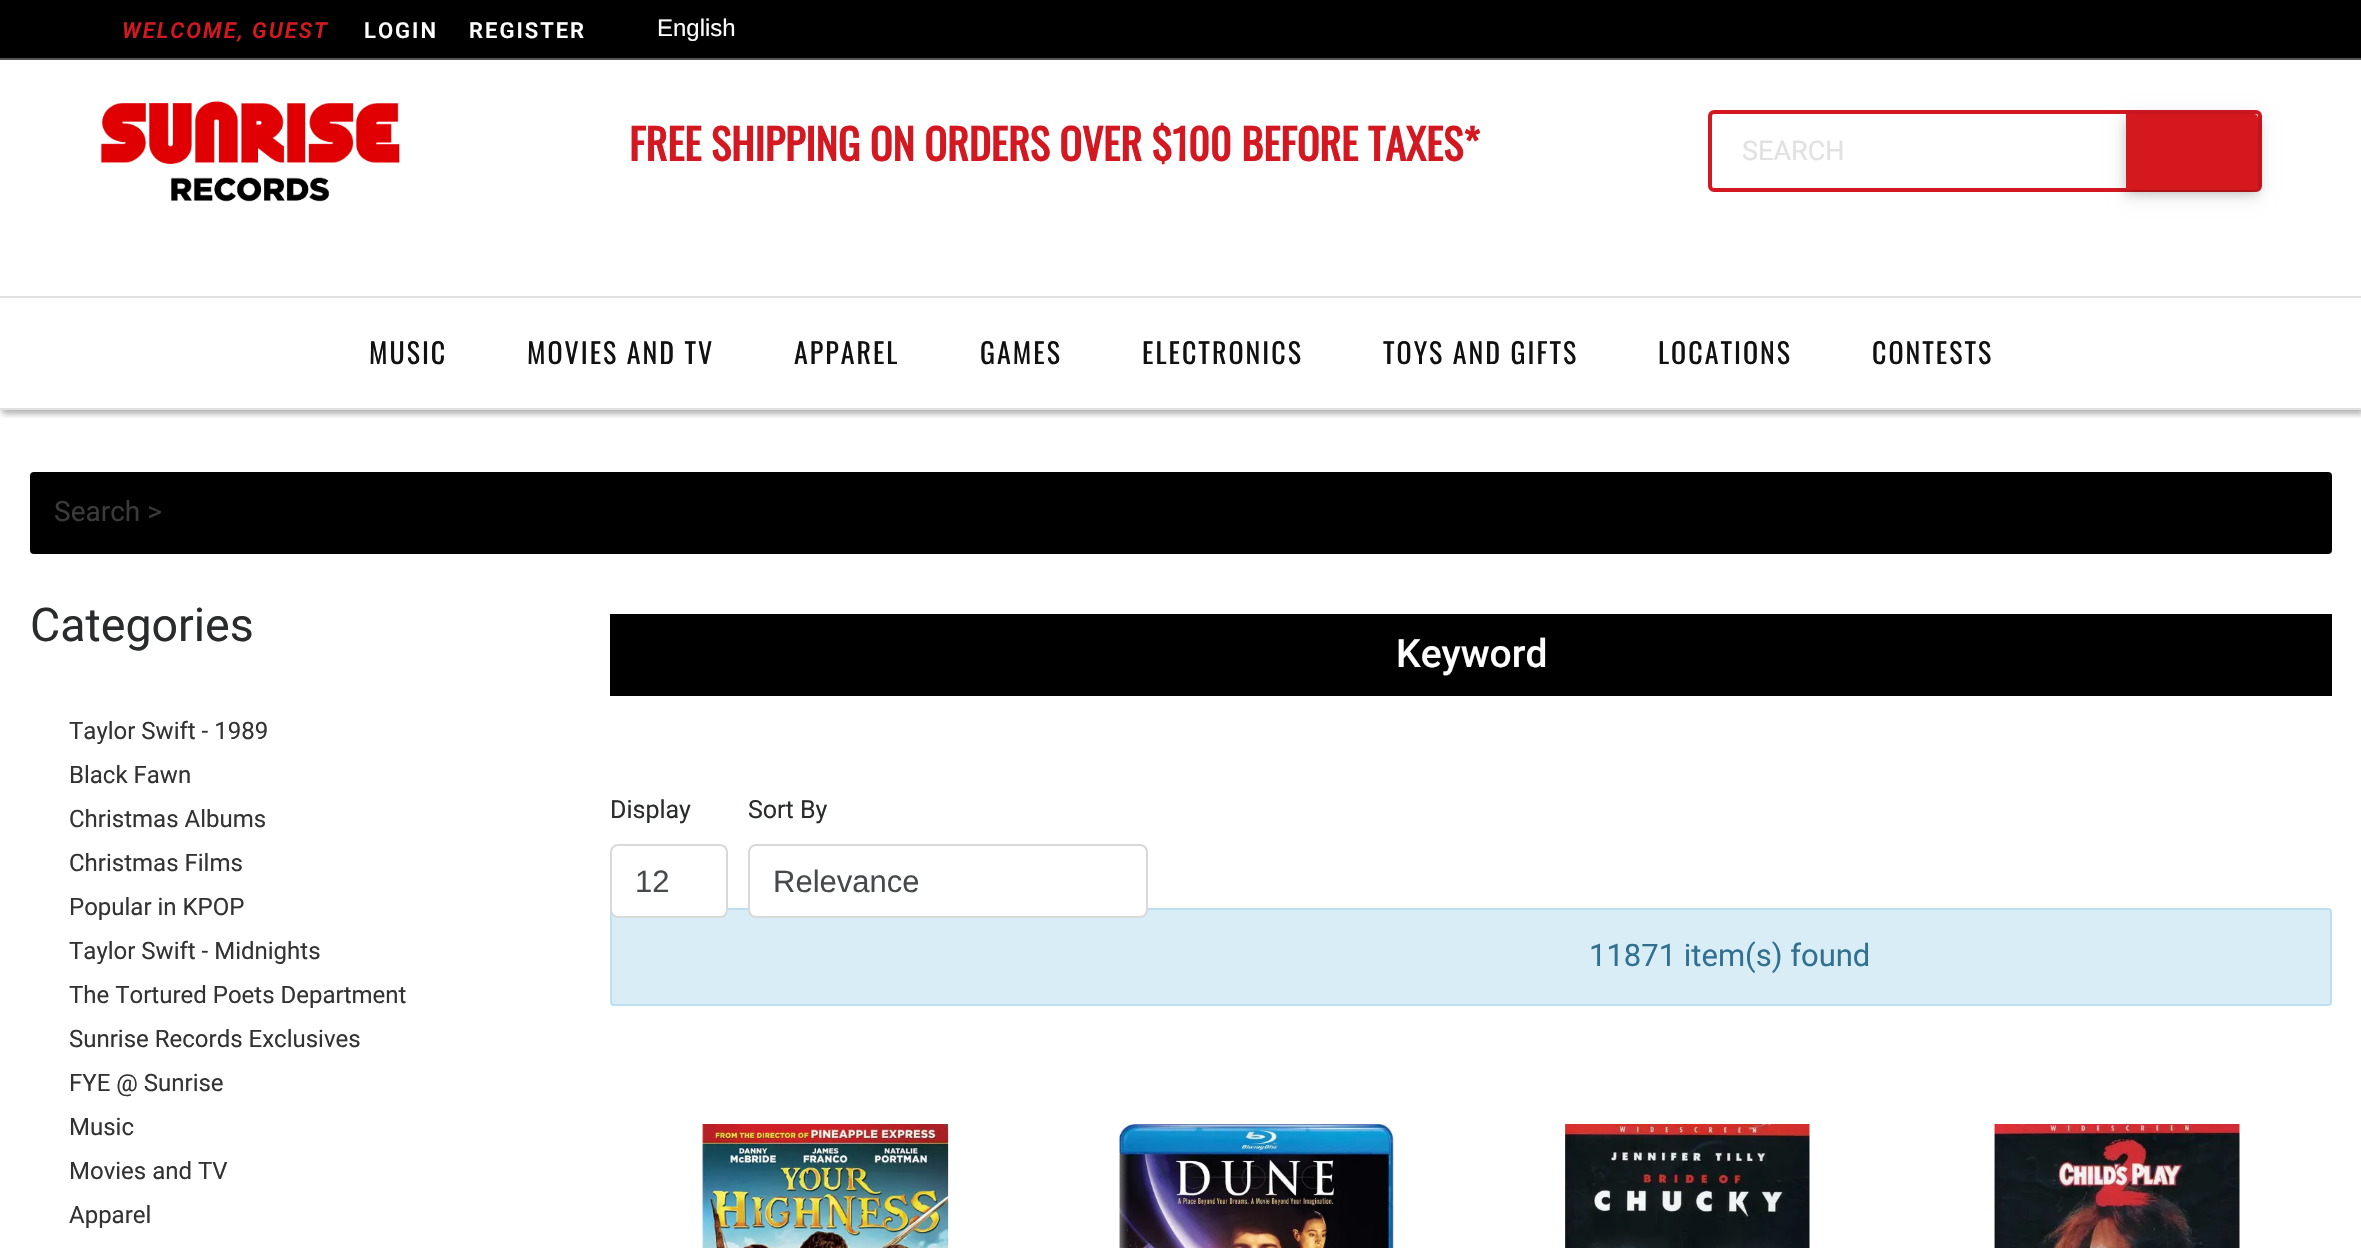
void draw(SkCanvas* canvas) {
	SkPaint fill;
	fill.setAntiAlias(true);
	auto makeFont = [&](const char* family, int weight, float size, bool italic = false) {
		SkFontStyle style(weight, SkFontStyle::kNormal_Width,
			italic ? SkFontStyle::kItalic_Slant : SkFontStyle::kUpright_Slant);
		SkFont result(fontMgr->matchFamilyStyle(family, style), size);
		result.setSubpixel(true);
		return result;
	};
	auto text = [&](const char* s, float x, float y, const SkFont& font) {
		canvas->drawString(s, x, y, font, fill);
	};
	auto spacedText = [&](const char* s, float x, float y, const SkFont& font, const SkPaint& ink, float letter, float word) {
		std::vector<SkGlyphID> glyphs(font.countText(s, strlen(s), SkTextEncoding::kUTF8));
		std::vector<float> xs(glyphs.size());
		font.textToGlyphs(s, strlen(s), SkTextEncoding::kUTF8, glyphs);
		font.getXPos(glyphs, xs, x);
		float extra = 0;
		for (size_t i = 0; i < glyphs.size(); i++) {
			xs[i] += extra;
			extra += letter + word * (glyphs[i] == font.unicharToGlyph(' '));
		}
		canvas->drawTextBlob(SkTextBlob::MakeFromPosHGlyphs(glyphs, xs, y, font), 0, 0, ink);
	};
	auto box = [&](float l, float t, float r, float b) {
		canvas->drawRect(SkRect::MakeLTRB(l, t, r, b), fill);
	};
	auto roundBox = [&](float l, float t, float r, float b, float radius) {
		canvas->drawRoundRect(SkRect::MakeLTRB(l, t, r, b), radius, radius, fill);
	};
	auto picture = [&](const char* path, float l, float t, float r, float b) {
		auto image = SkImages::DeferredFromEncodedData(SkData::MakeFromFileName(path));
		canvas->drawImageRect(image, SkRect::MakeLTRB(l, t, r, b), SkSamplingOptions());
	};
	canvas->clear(0xFF000000);
	fill.setColor(0xFF555555);
	box(0, 58, 2361, 60);
	fill.setColor(0xFFFFFFFF);
	box(0, 60, 2361, 1248);
	picture("image0.png", 100, 101, 400, 202);
	fill.setStyle(SkPaint::kStroke_Style);
	fill.setStrokeWidth(4);
	fill.setColor(0xFFD31821);
	canvas->drawRoundRect(SkRect::MakeLTRB(1710, 112, 2260, 190), 4, 4, fill);
	fill.setStyle(SkPaint::kFill_Style);
	fill.setColor(0x1F000000);
	fill.setMaskFilter(SkMaskFilter::MakeBlur(kNormal_SkBlurStyle, 10));
	canvas->drawRoundRect(SkRect::MakeLTRB(2126, 118, 2258, 194), 4, 4, fill);
	fill.setMaskFilter(nullptr);
	fill.setColor(0x29000000);
	fill.setMaskFilter(SkMaskFilter::MakeBlur(kNormal_SkBlurStyle, 5));
	canvas->drawRoundRect(SkRect::MakeLTRB(2126, 118, 2258, 194), 4, 4, fill);
	fill.setMaskFilter(nullptr);
	fill.setColor(0xFFD5181E);
	canvas->drawPath(SkPathBuilder().moveTo(2126, 114).lineTo(2254, 114).cubicTo(2256, 114, 2258, 116, 2258, 118).lineTo(2258, 186).cubicTo(2258, 188, 2256, 190, 2254, 190).lineTo(2126, 190).close().detach(), fill);
	canvas->save();
	canvas->clipRect(SkRect::MakeLTRB(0, 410, 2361, 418));
	fill.setColor(0x4D000000);
	fill.setMaskFilter(SkMaskFilter::MakeBlur(kNormal_SkBlurStyle, 3));
	canvas->drawRect(SkRect::MakeLTRB(2, 300, 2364, 414), fill);
	fill.setMaskFilter(nullptr);
	canvas->restore();
	fill.setColor(0xFFE1E1E1);
	box(0, 296, 2361, 298);
	box(0, 408, 2361, 410);
	fill.setColor(0xFF000000);
	roundBox(30, 472, 2332, 554, 4);
	box(610, 614, 2332, 696);
	fill.setColor(0xFFD9EDF7);
	canvas->drawRoundRect(SkRect::MakeLTRB(611, 909, 2331, 1005), 3, 3, fill);
	fill.setStyle(SkPaint::kStroke_Style);
	fill.setStrokeWidth(2);
	fill.setColor(0xFFBCDFF1);
	canvas->drawRoundRect(SkRect::MakeLTRB(611, 909, 2331, 1005), 3, 3, fill);
	fill.setStyle(SkPaint::kFill_Style);
	fill.setColor(0xFFFFFFFF);
	roundBox(610, 844, 728, 918, 8);
	fill.setStyle(SkPaint::kStroke_Style);
	fill.setColor(0x26000000);
	canvas->drawRoundRect(SkRect::MakeLTRB(611, 845, 727, 917), 7, 7, fill);
	fill.setStyle(SkPaint::kFill_Style);
	fill.setColor(0xFFFFFFFF);
	roundBox(748, 844, 1148, 918, 8);
	fill.setStyle(SkPaint::kStroke_Style);
	fill.setColor(0x26000000);
	canvas->drawRoundRect(SkRect::MakeLTRB(749, 845, 1147, 917), 7, 7, fill);
	picture("image1.png", 702, 1124, 949, 1248);
	picture("image2.png", 1119, 1124, 1394, 1248);
	picture("image3.png", 1565, 1124, 1810, 1248);
	picture("image4.png", 1994, 1124, 2240, 1248);
	auto font1 = makeFont("Roboto", 600, 22, true);
	fill.setStyle(SkPaint::kFill_Style);
	fill.setColor(0xFFD31821);
	spacedText("WELCOME, GUEST", 122, 38, font1, fill, 2, 0);
	auto font2 = makeFont("Roboto", 600, 22);
	fill.setColor(0xFFFFFFFF);
	spacedText("LOGIN", 364, 38, font2, fill, 2, 0);
	spacedText("REGISTER", 469, 38, font2, fill, 2, 0);
	auto font3 = makeFont("Liberation Sans", 400, 24);
	text("English", 657, 36, font3);
	auto font4 = makeFont("Oswald", 700, 42);
	fill.setColor(0xFFD31821);
	text("FREE SHIPPING ON ORDERS OVER $100 BEFORE TAXES*", 629, 161, font4);
	auto font5 = makeFont("Roboto", 400, 27);
	fill.setColor(0xFFE1E1E1);
	text("SEARCH", 1742, 160, font5);
	auto font6 = makeFont("Oswald", 400, 28);
	fill.setColor(0xFF111111);
	spacedText("MUSIC", 369, 364, font6, fill, 2, 0);
	spacedText("MOVIES AND TV", 527, 364, font6, fill, 2, 0);
	spacedText("APPAREL", 794, 364, font6, fill, 2, 0);
	spacedText("GAMES", 980, 364, font6, fill, 2, 0);
	spacedText("ELECTRONICS", 1142, 364, font6, fill, 2, 0);
	spacedText("TOYS AND GIFTS", 1383, 364, font6, fill, 2, 0);
	spacedText("LOCATIONS", 1658, 364, font6, fill, 2, 0);
	spacedText("CONTESTS", 1872, 364, font6, fill, 2, 0);
	auto font7 = makeFont("Roboto", 400, 28);
	fill.setColor(0xFF3A3A3A);
	text("Search >", 54, 521, font7);
	auto font8 = makeFont("Roboto", 400, 46.5f);
	fill.setColor(0xFF292B2C);
	text("Categories", 30, 641, font8);
	auto font9 = makeFont("Roboto", 400, 24);
	fill.setColor(0xFF333333);
	text("Taylor Swift - 1989", 69, 739, font9);
	text("Black Fawn", 69, 783, font9);
	text("Christmas Albums", 69, 827, font9);
	text("Christmas Films", 69, 871, font9);
	text("Popular in KPOP", 69, 915, font9);
	text("Taylor Swift - Midnights", 69, 959, font9);
	text("The Tortured Poets Department", 69, 1003, font9);
	text("Sunrise Records Exclusives", 69, 1047, font9);
	text("FYE @ Sunrise", 69, 1091, font9);
	text("Music", 69, 1135, font9);
	text("Movies and TV", 69, 1179, font9);
	text("Apparel", 69, 1223, font9);
	auto font10 = makeFont("Roboto", 500, 39);
	fill.setColor(0xFFFFFFFF);
	text("Keyword", 1396, 667, font10);
	auto font11 = makeFont("Roboto", 400, 25);
	fill.setColor(0xFF292B2C);
	text("Display", 610, 818, font11);
	auto font12 = makeFont("Liberation Sans", 400, 31);
	fill.setColor(0xFF464A4C);
	text("12", 635, 892, font12);
	fill.setColor(0xFF292B2C);
	text("Sort By", 748, 818, font11);
	fill.setColor(0xFF464A4C);
	text("Relevance", 773, 892, font12);
	auto font13 = makeFont("Roboto", 400, 31);
	fill.setColor(0xFF31708F);
	text("11871 item(s) found", 1589, 966, font13);
}
